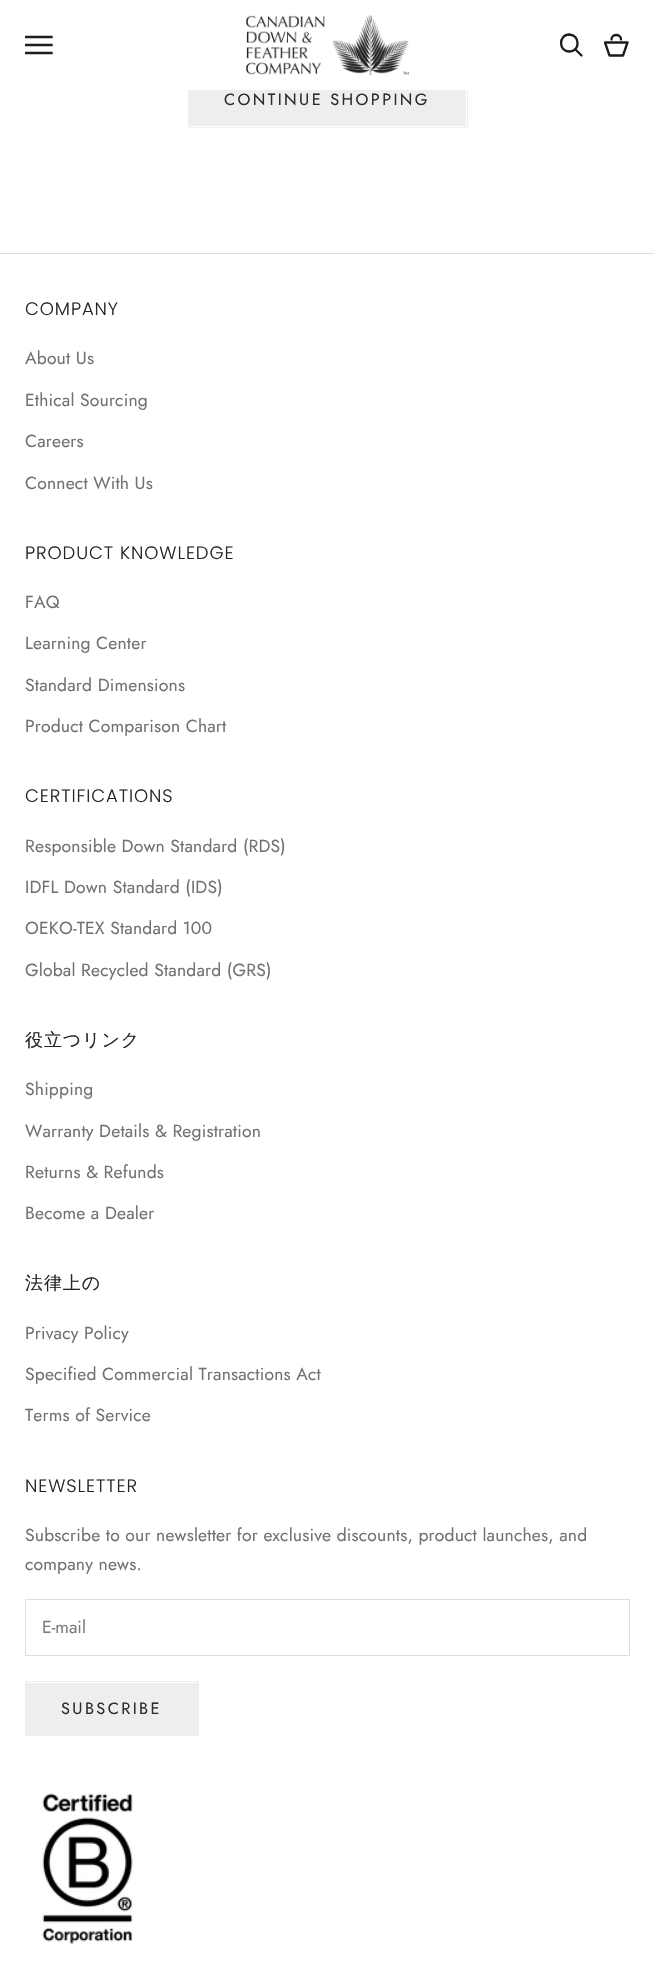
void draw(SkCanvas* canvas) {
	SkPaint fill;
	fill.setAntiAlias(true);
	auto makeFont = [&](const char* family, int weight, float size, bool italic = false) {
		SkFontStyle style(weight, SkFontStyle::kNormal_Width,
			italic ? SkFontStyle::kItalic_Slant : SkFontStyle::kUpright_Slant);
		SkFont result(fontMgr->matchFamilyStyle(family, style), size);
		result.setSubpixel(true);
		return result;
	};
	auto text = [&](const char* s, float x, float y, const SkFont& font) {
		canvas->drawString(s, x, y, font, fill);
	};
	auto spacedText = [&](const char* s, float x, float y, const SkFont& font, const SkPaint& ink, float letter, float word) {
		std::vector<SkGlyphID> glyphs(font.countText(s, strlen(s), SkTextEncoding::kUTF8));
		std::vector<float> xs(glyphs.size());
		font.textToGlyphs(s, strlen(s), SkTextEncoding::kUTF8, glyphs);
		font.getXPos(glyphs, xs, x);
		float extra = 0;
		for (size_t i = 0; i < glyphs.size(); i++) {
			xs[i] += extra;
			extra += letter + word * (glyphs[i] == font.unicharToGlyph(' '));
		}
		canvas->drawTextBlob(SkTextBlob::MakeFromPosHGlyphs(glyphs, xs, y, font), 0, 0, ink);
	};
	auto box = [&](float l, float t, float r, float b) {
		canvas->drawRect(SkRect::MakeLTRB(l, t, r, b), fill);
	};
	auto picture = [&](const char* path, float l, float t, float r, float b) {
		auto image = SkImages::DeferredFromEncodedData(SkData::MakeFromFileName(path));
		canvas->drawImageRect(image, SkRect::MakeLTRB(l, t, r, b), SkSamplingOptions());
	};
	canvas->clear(0xFFFFFFFF);
	fill.setColor(0xFFEEEEEE);
	box(189, 90, 466, 126);
	fill.setStyle(SkPaint::kStroke_Style);
	fill.setStrokeWidth(1);
	canvas->drawRect(SkRect::MakeLTRB(188.5f, 73.5f, 467.5f, 127.5f), fill);
	fill.setStyle(SkPaint::kFill_Style);
	fill.setColor(0xFFFFFFFF);
	box(188, 73, 468, 90);
	canvas->save();
	canvas->clipRect(SkRect::MakeLTRB(25, 31, 53, 59));
	fill.setStyle(SkPaint::kStroke_Style);
	fill.setStrokeWidth(2.3f);
	fill.setStrokeCap(SkPaint::kSquare_Cap);
	fill.setColor(0xFF1C1C1C);
	canvas->drawPath(SkPathBuilder().moveTo(26, 53).lineTo(51.5f, 53).moveTo(26, 45).lineTo(51.5f, 45).moveTo(26, 37).lineTo(51.5f, 37).detach(), fill);
	canvas->restore();
	picture("image0.png", 246, 15, 409, 75);
	fill.setStrokeCap(SkPaint::kButt_Cap);
	canvas->drawPath(SkPathBuilder().moveTo(569.5f, 34.5f).cubicTo(558, 34.5f, 558.5f, 52, 569.5f, 51.5f).cubicTo(580.5f, 51, 580, 35, 569.5f, 34.5f).close().detach(), fill);
	fill.setStrokeCap(SkPaint::kRound_Cap);
	canvas->drawPath(SkPathBuilder().moveTo(575.5f, 49.5f).lineTo(581.5f, 55.5f).detach(), fill);
	fill.setStrokeJoin(SkPaint::kRound_Join);
	canvas->drawPath(SkPathBuilder().moveTo(605, 42.5f).lineTo(627.5f, 42.5f).lineTo(623, 55.5f).lineTo(609.5f, 55.5f).close().moveTo(621, 39.5f).cubicTo(621, 33.5f, 611.5f, 33.5f, 611.5f, 39.5f).detach(), fill);
	fill.setStyle(SkPaint::kFill_Style);
	fill.setColor(0xFFDEDFDE);
	box(0, 253, 654, 254);
	fill.setStyle(SkPaint::kStroke_Style);
	fill.setStrokeWidth(1);
	fill.setStrokeCap(SkPaint::kButt_Cap);
	fill.setStrokeJoin(SkPaint::kMiter_Join);
	canvas->drawRect(SkRect::MakeLTRB(25.5f, 1599.5f, 629.5f, 1655.5f), fill);
	fill.setStyle(SkPaint::kFill_Style);
	fill.setColor(0xFFEEEEEE);
	box(26, 1683, 198, 1735);
	fill.setStyle(SkPaint::kStroke_Style);
	canvas->drawRect(SkRect::MakeLTRB(25.5f, 1681.5f, 198.5f, 1735.5f), fill);
	picture("image1.png", 40, 1791, 135, 1944);
	auto font1 = makeFont("Jost", 400, 16.25f);
	fill.setStyle(SkPaint::kFill_Style);
	fill.setColor(0xFF2B2B2B);
	spacedText("CONTINUE SHOPPING", 224, 105, font1, fill, 2.4f, 0);
	auto font2 = makeFont("Poppins", 300, 18);
	fill.setColor(0xFF212721);
	spacedText("COMPANY", 25, 315, font2, fill, 0.9f, 0);
	auto font3 = makeFont("Jost", 400, 17.5f);
	fill.setColor(0xFF6F736F);
	spacedText("About Us", 25, 364, font3, fill, 0.18f, 0);
	spacedText("Ethical Sourcing", 25, 406, font3, fill, 0.18f, 0);
	spacedText("Careers", 25, 447, font3, fill, 0.18f, 0);
	spacedText("Connect With Us", 25, 489, font3, fill, 0.18f, 0);
	fill.setColor(0xFF212721);
	spacedText("PRODUCT KNOWLEDGE", 25, 559, font2, fill, 0.9f, 0);
	fill.setColor(0xFF6F736F);
	spacedText("FAQ", 25, 608, font3, fill, 0.18f, 0);
	spacedText("Learning Center", 25, 649, font3, fill, 0.18f, 0);
	spacedText("Standard Dimensions", 25, 691, font3, fill, 0.18f, 0);
	spacedText("Product Comparison Chart", 25, 732, font3, fill, 0.18f, 0);
	fill.setColor(0xFF212721);
	spacedText("CERTIFICATIONS", 25, 802, font2, fill, 0.9f, 0);
	fill.setColor(0xFF6F736F);
	spacedText("Responsible Down Standard (RDS)", 25, 852, font3, fill, 0.18f, 0);
	spacedText("IDFL Down Standard (IDS)", 25, 893, font3, fill, 0.18f, 0);
	spacedText("OEKO-TEX Standard 100", 25, 934, font3, fill, 0.18f, 0);
	spacedText("Global Recycled Standard (GRS)", 25, 976, font3, fill, 0.18f, 0);
	auto font4 = makeFont("WenQuanYi Zen Hei", 500, 18);
	fill.setColor(0xFF212721);
	spacedText("役立つリンク", 25, 1046, font4, fill, 0.9f, 0);
	fill.setColor(0xFF6F736F);
	spacedText("Shipping", 25, 1095, font3, fill, 0.18f, 0);
	spacedText("Warranty Details & Registration", 25, 1137, font3, fill, 0.18f, 0);
	spacedText("Returns & Refunds", 25, 1178, font3, fill, 0.18f, 0);
	spacedText("Become a Dealer", 25, 1219, font3, fill, 0.18f, 0);
	fill.setColor(0xFF212721);
	spacedText("法律上の", 25, 1289, font4, fill, 0.9f, 0);
	fill.setColor(0xFF6F736F);
	spacedText("Privacy Policy", 25, 1339, font3, fill, 0.18f, 0);
	spacedText("Specified Commercial Transactions Act", 25, 1380, font3, fill, 0.18f, 0);
	spacedText("Terms of Service", 25, 1421, font3, fill, 0.18f, 0);
	fill.setColor(0xFF212721);
	spacedText("NEWSLETTER", 25, 1492, font2, fill, 0.9f, 0);
	fill.setColor(0xFF6F736F);
	spacedText("Subscribe to our newsletter for exclusive discounts, product launches, and", 25, 1541, font3, fill, 0.18f, 0);
	spacedText("company news.", 25, 1570, font3, fill, 0.18f, 0);
	fill.setColor(0xFF7A7D7A);
	text("E-mail", 42, 1633, font3);
	fill.setColor(0xFF2B2B2B);
	spacedText("SUBSCRIBE", 61, 1714, font1, fill, 2.4f, 0);
}
